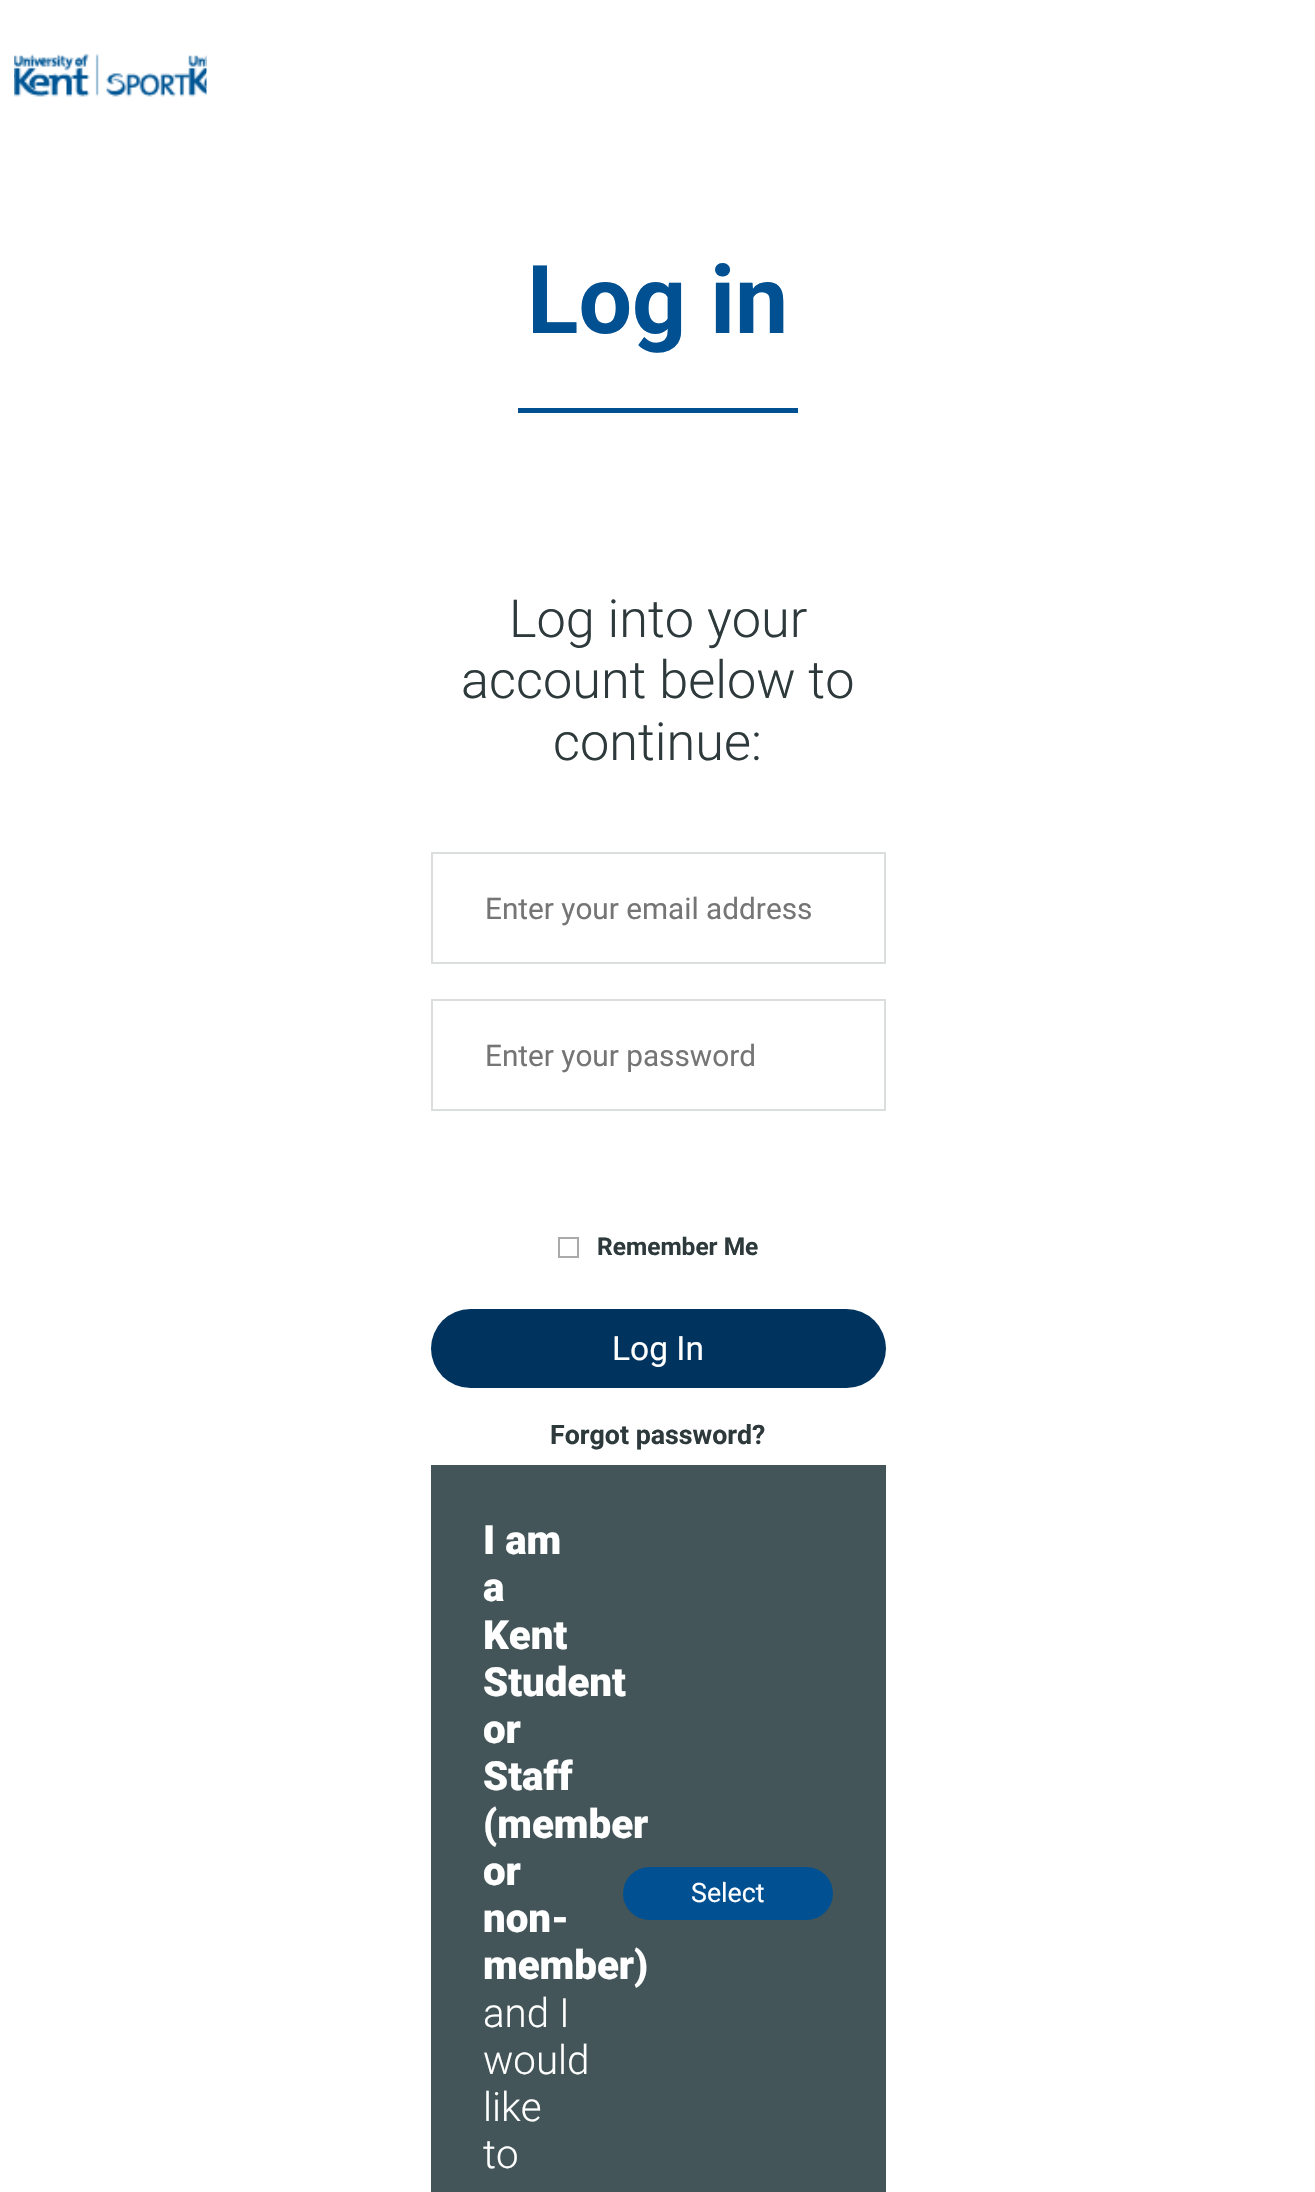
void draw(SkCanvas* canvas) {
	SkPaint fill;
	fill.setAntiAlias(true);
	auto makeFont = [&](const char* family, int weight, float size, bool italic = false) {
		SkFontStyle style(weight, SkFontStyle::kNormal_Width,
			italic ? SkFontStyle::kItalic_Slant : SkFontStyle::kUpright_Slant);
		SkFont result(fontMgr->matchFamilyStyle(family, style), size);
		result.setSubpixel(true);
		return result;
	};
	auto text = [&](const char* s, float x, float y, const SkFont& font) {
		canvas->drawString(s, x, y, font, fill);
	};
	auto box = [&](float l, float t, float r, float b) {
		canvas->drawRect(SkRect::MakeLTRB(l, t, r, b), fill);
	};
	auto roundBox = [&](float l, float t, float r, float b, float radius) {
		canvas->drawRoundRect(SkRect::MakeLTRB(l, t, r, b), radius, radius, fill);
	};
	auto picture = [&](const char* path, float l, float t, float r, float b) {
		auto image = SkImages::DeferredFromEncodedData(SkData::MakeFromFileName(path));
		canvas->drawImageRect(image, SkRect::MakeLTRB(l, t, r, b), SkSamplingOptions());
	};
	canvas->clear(0xFFFFFFFF);
	picture("image0.png", 14, 53, 207, 97);
	fill.setColor(0xFF005092);
	box(518, 408, 798, 413);
	fill.setStyle(SkPaint::kStroke_Style);
	fill.setStrokeWidth(2);
	fill.setColor(0xFFDBDEDF);
	canvas->drawRect(SkRect::MakeLTRB(432, 853, 885, 963), fill);
	canvas->drawRect(SkRect::MakeLTRB(432, 1000, 885, 1110), fill);
	fill.setColor(0xFFAAAAAA);
	canvas->drawRect(SkRect::MakeLTRB(559, 1238, 578, 1257), fill);
	fill.setStyle(SkPaint::kFill_Style);
	fill.setColor(0xFF00345F);
	roundBox(431, 1309, 886, 1388, 39.5f);
	fill.setColor(0xFF435558);
	box(431, 1465, 886, 2192);
	fill.setColor(0xFF005092);
	roundBox(623, 1867, 833, 1920, 26.5f);
	auto font1 = makeFont("Roboto", 700, 95);
	text("Log in", 527, 333, font1);
	auto font2 = makeFont("Roboto", 300, 52.25f);
	fill.setColor(0xFF2D393B);
	text("Log into your", 509, 637, font2);
	text("account below to", 461, 698, font2);
	text("continue:", 553, 760, font2);
	auto font3 = makeFont("Roboto", 400, 29.75f);
	fill.setColor(0xFF757575);
	text("Enter your email address", 485, 919, font3);
	text("Enter your password", 485, 1066, font3);
	auto font4 = makeFont("Roboto", 700, 24.5f);
	fill.setColor(0xFF2D393B);
	text("Remember Me", 597, 1255, font4);
	auto font5 = makeFont("Roboto", 400, 33.5f);
	fill.setColor(0xFFFFFFFF);
	text("Log In", 612, 1360, font5);
	auto font6 = makeFont("Roboto", 700, 26.75f);
	fill.setColor(0xFF2D393B);
	text("Forgot password?", 550, 1444, font6);
	auto font7 = makeFont("Roboto", 900, 40.25f);
	fill.setColor(0xFFFFFFFF);
	text("I am", 483, 1554, font7);
	text("a", 483, 1601, font7);
	text("Kent", 483, 1649, font7);
	text("Student", 483, 1696, font7);
	text("or", 483, 1743, font7);
	text("Staff", 483, 1790, font7);
	text("(member", 483, 1838, font7);
	text("or", 483, 1885, font7);
	text("non-", 483, 1932, font7);
	text("member)", 483, 1979, font7);
	auto font8 = makeFont("Roboto", 400, 26.75f);
	text("Select", 691, 1902, font8);
	auto font9 = makeFont("Roboto", 300, 40.25f);
	text("and I", 483, 2027, font9);
	text("would", 483, 2074, font9);
	text("like", 483, 2121, font9);
	text("to", 483, 2168, font9);
}
